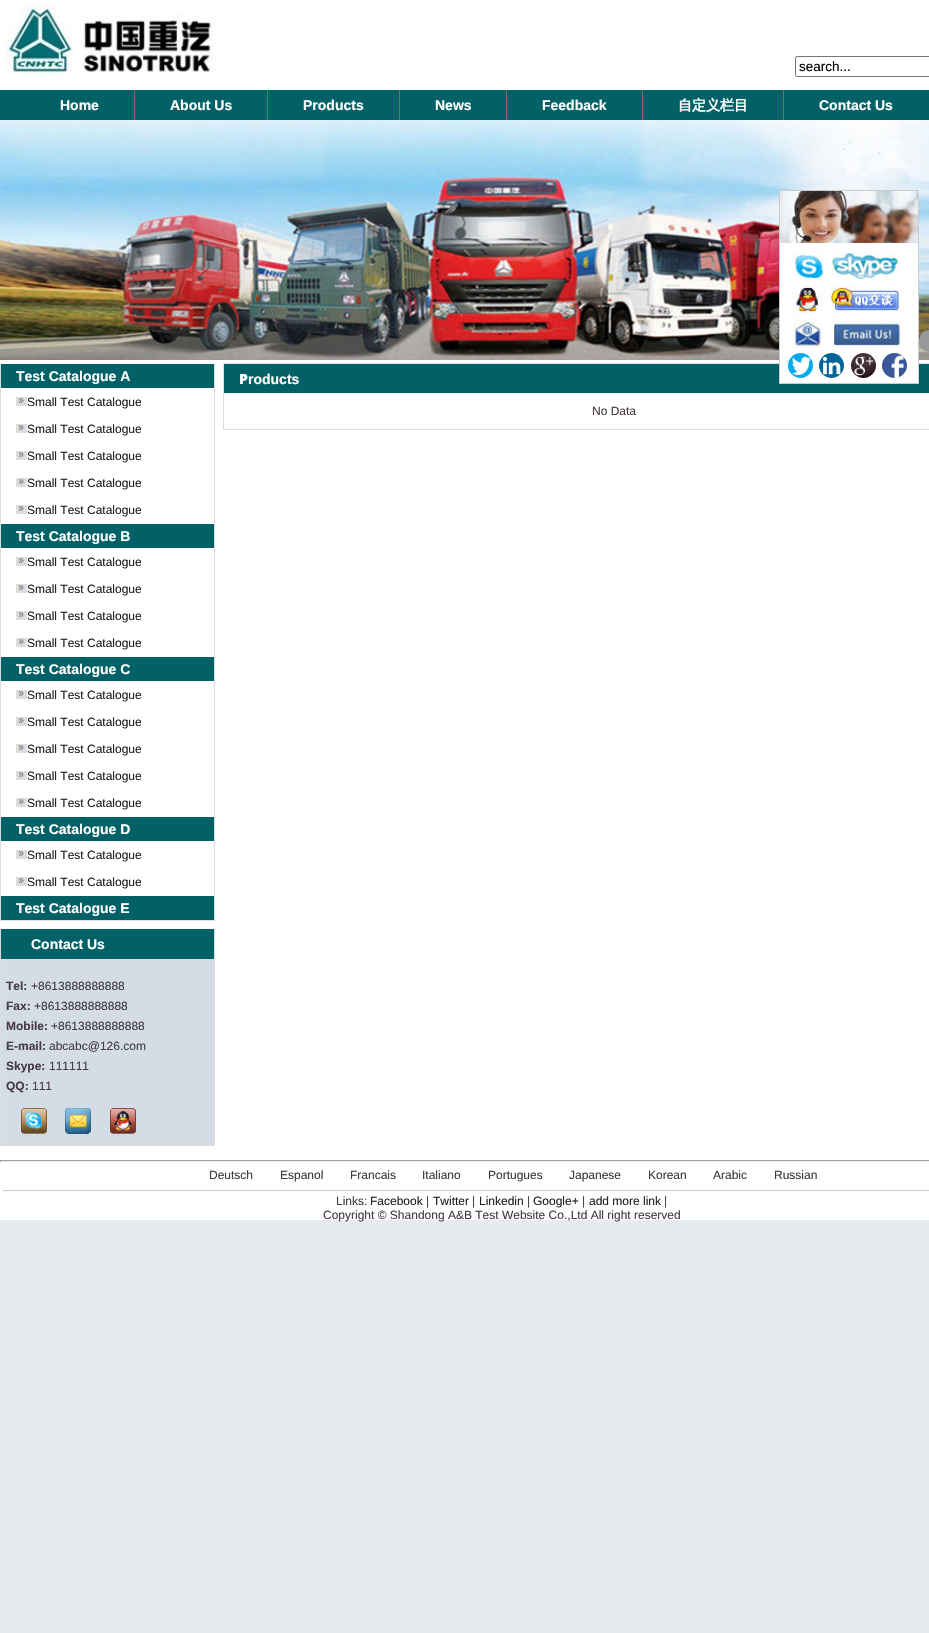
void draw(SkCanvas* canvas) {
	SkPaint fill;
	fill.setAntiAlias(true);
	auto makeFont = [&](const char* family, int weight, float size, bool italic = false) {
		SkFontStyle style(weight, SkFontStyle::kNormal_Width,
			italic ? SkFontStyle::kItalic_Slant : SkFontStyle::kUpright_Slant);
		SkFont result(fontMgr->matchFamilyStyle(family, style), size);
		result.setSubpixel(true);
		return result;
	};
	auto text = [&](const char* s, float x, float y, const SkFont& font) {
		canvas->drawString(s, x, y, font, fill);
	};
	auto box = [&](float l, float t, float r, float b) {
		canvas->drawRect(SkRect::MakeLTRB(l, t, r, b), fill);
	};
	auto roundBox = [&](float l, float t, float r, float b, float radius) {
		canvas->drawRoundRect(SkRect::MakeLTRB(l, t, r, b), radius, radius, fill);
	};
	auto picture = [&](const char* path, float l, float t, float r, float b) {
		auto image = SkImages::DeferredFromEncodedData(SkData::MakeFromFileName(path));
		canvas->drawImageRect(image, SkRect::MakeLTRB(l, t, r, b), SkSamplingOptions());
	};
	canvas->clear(0xFFE6EBEF);
	fill.setColor(0xFFFFFFFF);
	box(0, 0, 929, 1220);
	picture("image0.png", 5, 5, 216, 74);
	fill.setStyle(SkPaint::kStroke_Style);
	fill.setStrokeWidth(1);
	fill.setColor(0xFF767676);
	canvas->drawRoundRect(SkRect::MakeLTRB(795.5f, 56.5f, 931.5f, 76.5f), 1.5f, 1.5f, fill);
	fill.setStyle(SkPaint::kFill_Style);
	fill.setColor(0xFF026167);
	box(0, 90, 929, 120);
	fill.setColor(0xFF866A61);
	box(134, 90, 135, 120);
	box(267, 90, 268, 120);
	box(399, 90, 400, 120);
	box(506, 90, 507, 120);
	box(642, 90, 643, 120);
	box(783, 90, 784, 120);
	picture("image1.png", 0, 120, 929, 360);
	fill.setColor(0xFF999999);
	roundBox(919, 330, 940, 352, 11);
	fill.setStyle(SkPaint::kStroke_Style);
	fill.setColor(0xFFDDDDDD);
	canvas->drawRect(SkRect::MakeLTRB(223.5f, 363.5f, 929.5f, 429.5f), fill);
	fill.setStyle(SkPaint::kFill_Style);
	fill.setColor(0xFF026167);
	box(224, 364, 929, 393);
	fill.setColor(0xFFFFFFFF);
	box(780, 243, 918, 383);
	fill.setStyle(SkPaint::kStroke_Style);
	fill.setColor(0xFFCCCCCC);
	canvas->drawRect(SkRect::MakeLTRB(779.5f, 190.5f, 918.5f, 383.5f), fill);
	picture("image2.png", 780, 191, 918, 243);
	picture("image3.png", 793, 251, 901, 280);
	picture("image4.png", 793, 285, 901, 314);
	picture("image5.png", 792, 319, 901, 348);
	picture("image6.png", 788, 353, 813, 378);
	picture("image7.png", 819, 353, 844, 378);
	picture("image8.png", 851, 353, 876, 378);
	picture("image9.png", 882, 353, 907, 378);
	fill.setStyle(SkPaint::kFill_Style);
	fill.setColor(0xFFDDDDDD);
	box(214, 364, 215, 921);
	box(0, 920, 215, 921);
	box(0, 364, 1, 921);
	fill.setColor(0xFF026167);
	box(1, 364, 214, 388);
	picture("image10.png", 16, 397, 27, 406);
	picture("image10.png", 16, 424, 27, 433);
	picture("image10.png", 16, 451, 27, 460);
	picture("image10.png", 16, 478, 27, 487);
	picture("image10.png", 16, 505, 27, 514);
	box(1, 524, 214, 548);
	picture("image10.png", 16, 557, 27, 566);
	picture("image10.png", 16, 584, 27, 593);
	picture("image10.png", 16, 611, 27, 620);
	picture("image10.png", 16, 638, 27, 647);
	box(1, 657, 214, 681);
	picture("image10.png", 16, 690, 27, 699);
	picture("image10.png", 16, 717, 27, 726);
	picture("image10.png", 16, 744, 27, 753);
	picture("image10.png", 16, 771, 27, 780);
	picture("image10.png", 16, 798, 27, 807);
	box(1, 817, 214, 841);
	picture("image10.png", 16, 850, 27, 859);
	picture("image10.png", 16, 877, 27, 886);
	box(1, 896, 214, 920);
	fill.setColor(0xFFDDDDDD);
	box(214, 929, 215, 1146);
	box(0, 1145, 215, 1146);
	box(0, 929, 1, 1146);
	fill.setColor(0xFF026167);
	box(1, 929, 214, 959);
	fill.setColor(0xFFD4DDE6);
	box(1, 959, 214, 1145);
	picture("image11.png", 21, 1108, 47, 1134);
	picture("image12.png", 65, 1108, 91, 1134);
	picture("image13.png", 110, 1108, 136, 1134);
	fill.setColor(0xFF9F9F9F);
	box(0, 1160, 929, 1161);
	fill.setColor(0xFFEEEEEE);
	box(0, 1161, 929, 1162);
	fill.setColor(0xFF9F9F9F);
	box(0, 1160, 1, 1162);
	fill.setColor(0xFFCCCCCC);
	box(3, 1190, 929, 1191);
	auto font1 = makeFont("Liberation Sans", 400, 13.5f);
	fill.setColor(0xFF000000);
	text("search...", 799, 71, font1);
	auto font2 = makeFont("Liberation Sans", 700, 14);
	fill.setColor(0xFFFFFFFF);
	text("Home", 60, 110, font2);
	text("About Us", 170, 110, font2);
	text("Products", 303, 110, font2);
	text("News", 435, 110, font2);
	text("Feedback", 542, 110, font2);
	auto font3 = makeFont("WenQuanYi Zen Hei", 700, 14);
	text("自定义栏目", 678, 110, font3);
	text("Contact Us", 819, 110, font2);
	text("Test Catalogue A", 16, 381, font2);
	auto font4 = makeFont("Liberation Sans", 400, 12);
	fill.setColor(0xFF1F1F1F);
	text("Small Test Catalogue", 27, 406, font4);
	text("Small Test Catalogue", 27, 433, font4);
	text("Small Test Catalogue", 27, 460, font4);
	text("Small Test Catalogue", 27, 487, font4);
	text("Small Test Catalogue", 27, 514, font4);
	fill.setColor(0xFFFFFFFF);
	text("Test Catalogue B", 16, 541, font2);
	fill.setColor(0xFF1F1F1F);
	text("Small Test Catalogue", 27, 566, font4);
	text("Small Test Catalogue", 27, 593, font4);
	text("Small Test Catalogue", 27, 620, font4);
	text("Small Test Catalogue", 27, 647, font4);
	fill.setColor(0xFFFFFFFF);
	text("Test Catalogue C", 16, 674, font2);
	fill.setColor(0xFF1F1F1F);
	text("Small Test Catalogue", 27, 699, font4);
	text("Small Test Catalogue", 27, 726, font4);
	text("Small Test Catalogue", 27, 753, font4);
	text("Small Test Catalogue", 27, 780, font4);
	text("Small Test Catalogue", 27, 807, font4);
	fill.setColor(0xFFFFFFFF);
	text("Test Catalogue D", 16, 834, font2);
	fill.setColor(0xFF1F1F1F);
	text("Small Test Catalogue", 27, 859, font4);
	text("Small Test Catalogue", 27, 886, font4);
	fill.setColor(0xFFFFFFFF);
	text("Test Catalogue E", 16, 913, font2);
	text("Contact Us", 31, 949, font2);
	auto font5 = makeFont("Liberation Sans", 700, 12);
	fill.setColor(0xFF443A44);
	text("Tel:", 6, 990, font5);
	text("+8613888888888", 31, 990, font4);
	text("Fax:", 6, 1010, font5);
	text("+8613888888888", 34, 1010, font4);
	text("Mobile:", 6, 1030, font5);
	text("+8613888888888", 51, 1030, font4);
	text("E-mail:", 6, 1050, font5);
	text("abcabc@126.com", 49, 1050, font4);
	text("Skype:", 6, 1070, font5);
	text("111111", 49, 1070, font4);
	text("QQ:", 6, 1090, font5);
	text("111", 32, 1090, font4);
	auto font6 = makeFont("Noto Sans", 900, 14);
	fill.setColor(0xFFFFFFFF);
	text("P", 239, 384, font6);
	text("roducts", 248, 384, font2);
	fill.setColor(0xFF443A44);
	text("No Data", 592, 415, font4);
	fill.setColor(0xFF393939);
	text("Deutsch", 209, 1179, font4);
	text("Espanol", 280, 1179, font4);
	text("Francais", 350, 1179, font4);
	text("Italiano", 422, 1179, font4);
	text("Portugues", 488, 1179, font4);
	text("Japanese", 569, 1179, font4);
	text("Korean", 648, 1179, font4);
	text("Arabic", 713, 1179, font4);
	text("Russian", 774, 1179, font4);
	fill.setColor(0xFF443A44);
	text("Links:", 336, 1205, font4);
	fill.setColor(0xFF1F1F1F);
	text("Facebook", 370, 1205, font4);
	fill.setColor(0xFF443A44);
	text("|", 426, 1205, font4);
	fill.setColor(0xFF1F1F1F);
	text("Twitter", 433, 1205, font4);
	fill.setColor(0xFF443A44);
	text("|", 472, 1205, font4);
	fill.setColor(0xFF1F1F1F);
	text("Linkedin", 479, 1205, font4);
	fill.setColor(0xFF443A44);
	text("|", 527, 1205, font4);
	fill.setColor(0xFF1F1F1F);
	text("Google+", 533, 1205, font4);
	fill.setColor(0xFF443A44);
	text("|", 582, 1205, font4);
	fill.setColor(0xFF1F1F1F);
	text("add more link", 589, 1205, font4);
	fill.setColor(0xFF443A44);
	text("|", 664, 1205, font4);
	text("Copyright © Shandong A&B Test Website Co.,Ltd All right reserved", 323, 1219, font4);
}
